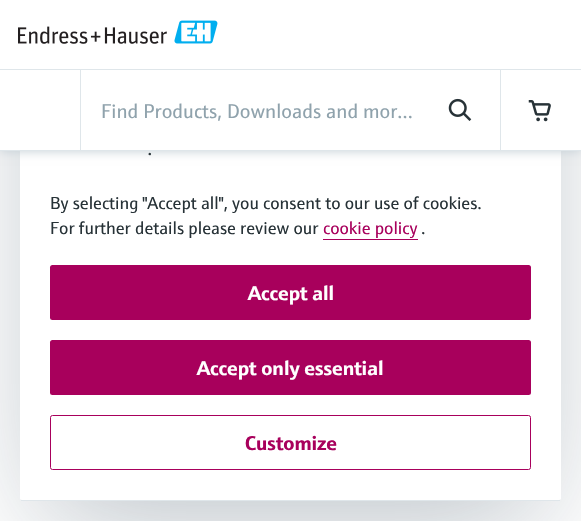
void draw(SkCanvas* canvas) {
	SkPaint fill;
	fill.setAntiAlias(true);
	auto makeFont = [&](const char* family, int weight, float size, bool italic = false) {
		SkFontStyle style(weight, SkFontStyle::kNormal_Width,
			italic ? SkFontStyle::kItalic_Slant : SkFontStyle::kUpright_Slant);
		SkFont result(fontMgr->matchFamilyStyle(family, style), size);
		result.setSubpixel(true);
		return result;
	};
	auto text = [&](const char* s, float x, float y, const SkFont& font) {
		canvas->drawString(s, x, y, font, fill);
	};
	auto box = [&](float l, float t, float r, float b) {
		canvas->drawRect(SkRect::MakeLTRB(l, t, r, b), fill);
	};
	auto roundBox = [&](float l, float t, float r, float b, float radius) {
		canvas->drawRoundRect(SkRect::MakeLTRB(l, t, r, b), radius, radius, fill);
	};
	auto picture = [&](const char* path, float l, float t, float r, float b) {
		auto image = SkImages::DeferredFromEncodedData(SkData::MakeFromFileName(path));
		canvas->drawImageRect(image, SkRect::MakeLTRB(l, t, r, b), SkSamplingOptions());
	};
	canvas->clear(0xFFFFFFFF);
	fill.setColor(0x4D193345);
	fill.setMaskFilter(SkMaskFilter::MakeBlur(kNormal_SkBlurStyle, 60));
	canvas->drawRect(SkRect::MakeLTRB(40, -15, 541, 521), fill);
	fill.setMaskFilter(nullptr);
	fill.setColor(0xFFFFFFFF);
	canvas->drawPath(SkPathBuilder().moveTo(22, -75).lineTo(559, -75).cubicTo(560, -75, 561, -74, 561, -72).lineTo(561, 499).cubicTo(561, 499, 560, 500, 559, 500).lineTo(22, 500).cubicTo(21, 500, 20, 499, 20, 499).lineTo(20, -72).cubicTo(20, -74, 21, -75, 22, -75).close().detach(), fill);
	fill.setColor(0xFFC3CED5);
	fill.setMaskFilter(SkMaskFilter::MakeBlur(kNormal_SkBlurStyle, 5));
	canvas->drawRect(SkRect::MakeLTRB(0, 0, 581, 151), fill);
	fill.setMaskFilter(nullptr);
	fill.setColor(0xFFFFFFFF);
	box(0, 0, 581, 150);
	fill.setColor(0xFFDFE6EA);
	box(0, 69, 581, 70);
	picture("image0.png", 18, 20, 218, 44);
	box(0, 150, 581, 151);
	box(500, 70, 501, 150);
	box(80, 70, 81, 150);
	picture("image1.png", 448, 98, 472, 121);
	picture("image2.png", 528, 100, 551, 122);
	box(21, 500, 560, 501);
	fill.setColor(0xFFA8005C);
	box(323, 239, 418, 240);
	roundBox(50, 265, 531, 320, 2.5f);
	roundBox(50, 340, 531, 395, 2.5f);
	fill.setStyle(SkPaint::kStroke_Style);
	fill.setStrokeWidth(1);
	canvas->drawRoundRect(SkRect::MakeLTRB(50.5f, 415.5f, 530.5f, 469.5f), 2, 2, fill);
	auto font1 = makeFont("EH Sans", 400, 20);
	fill.setStyle(SkPaint::kFill_Style);
	fill.setColor(0xFF8FA2AC);
	text("Find Products, Downloads and mor…", 101, 118, font1);
	auto font2 = makeFont("EH Sans", 300, 22);
	fill.setColor(0xFF273237);
	text(".", 147, 155, font2);
	auto font3 = makeFont("EH Sans", 400, 17.5f);
	text("By selecting \"Accept all\", you consent to our use of cookies.", 50, 209, font3);
	text("For further details please review our", 50, 234, font3);
	fill.setColor(0xFFA8005C);
	text("cookie policy", 323, 234, font3);
	fill.setColor(0xFF273237);
	text(".", 421, 234, font3);
	auto font4 = makeFont("EH Sans", 700, 20);
	fill.setColor(0xFFFFFFFF);
	text("Accept all", 248, 300, font4);
	text("Accept only essential", 197, 375, font4);
	fill.setColor(0xFFA8005C);
	text("Customize", 245, 450, font4);
}
